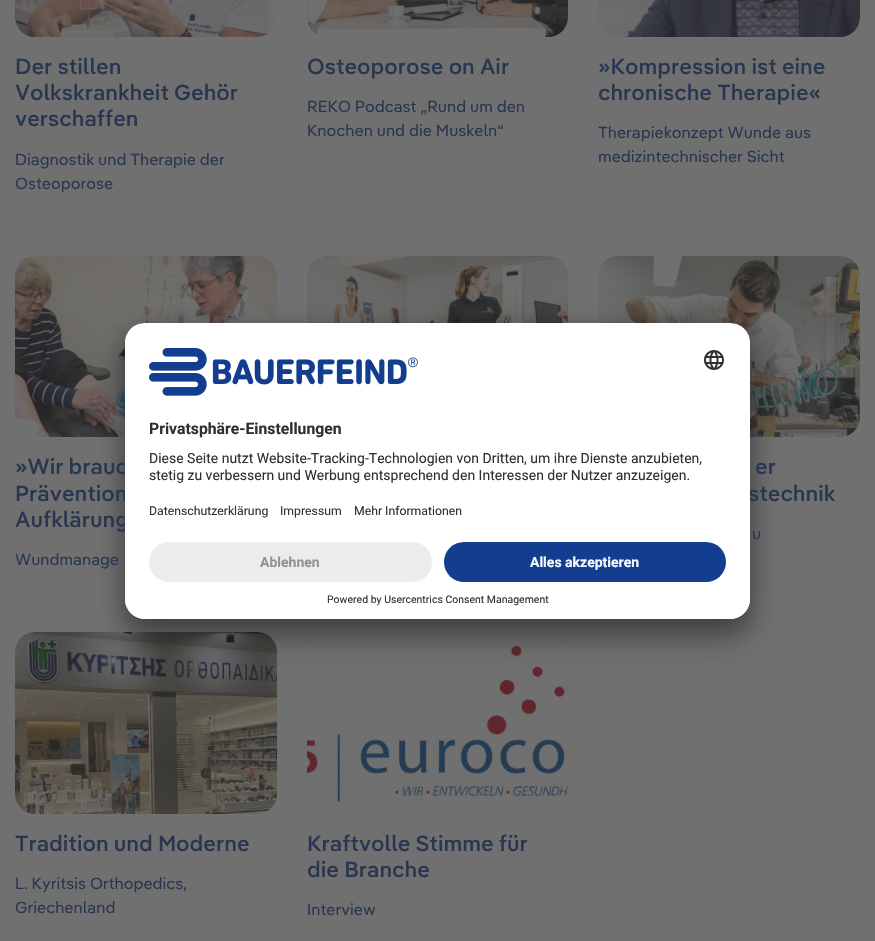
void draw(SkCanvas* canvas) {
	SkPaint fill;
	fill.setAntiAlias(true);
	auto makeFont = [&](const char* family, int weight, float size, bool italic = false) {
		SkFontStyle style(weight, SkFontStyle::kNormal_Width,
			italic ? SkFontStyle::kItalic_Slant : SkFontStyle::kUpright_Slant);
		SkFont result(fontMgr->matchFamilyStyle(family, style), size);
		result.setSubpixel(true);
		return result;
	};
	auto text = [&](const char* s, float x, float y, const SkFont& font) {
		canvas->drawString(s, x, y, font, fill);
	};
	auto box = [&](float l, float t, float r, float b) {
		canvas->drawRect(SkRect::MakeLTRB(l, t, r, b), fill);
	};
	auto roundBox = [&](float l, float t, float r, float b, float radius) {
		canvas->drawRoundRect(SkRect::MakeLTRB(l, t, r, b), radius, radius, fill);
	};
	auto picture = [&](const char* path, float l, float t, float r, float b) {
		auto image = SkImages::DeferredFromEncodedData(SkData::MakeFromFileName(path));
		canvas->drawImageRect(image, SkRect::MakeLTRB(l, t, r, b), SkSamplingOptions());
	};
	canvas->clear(0xFF707070);
	picture("image0.png", 15, 0, 277, 37);
	picture("image1.png", 307, 0, 568, 37);
	picture("image2.png", 598, 0, 860, 37);
	picture("image3.png", 307, 256, 568, 323);
	picture("image4.png", 15, 256, 277, 437);
	picture("image5.png", 598, 256, 860, 437);
	picture("image6.png", 15, 632, 277, 814);
	picture("image7.png", 307, 643, 568, 807);
	fill.setColor(0x4D000000);
	fill.setMaskFilter(SkMaskFilter::MakeBlur(kNormal_SkBlurStyle, 14));
	canvas->drawRoundRect(SkRect::MakeLTRB(125, 343, 750, 639), 20, 20, fill);
	fill.setMaskFilter(nullptr);
	fill.setColor(0x38000000);
	fill.setMaskFilter(SkMaskFilter::MakeBlur(kNormal_SkBlurStyle, 13));
	canvas->drawRoundRect(SkRect::MakeLTRB(125, 328, 750, 624), 20, 20, fill);
	fill.setMaskFilter(nullptr);
	auto font1 = makeFont("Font", 500, 21.75f);
	fill.setColor(0xFF29364F);
	text("Der stillen", 15, 74, font1);
	text("Volkskrankheit Gehör", 15, 100, font1);
	text("verschaffen", 15, 126, font1);
	auto font2 = makeFont("Font", 400, 16);
	text("Diagnostik und Therapie der", 15, 165, font2);
	text("Osteoporose", 15, 189, font2);
	text("Osteoporose on Air", 307, 74, font1);
	text("REKO Podcast „Rund um den", 307, 112, font2);
	text("Knochen und die Muskeln“", 307, 136, font2);
	text("»Kompression ist eine", 598, 74, font1);
	text("chronische Therapie«", 598, 100, font1);
	text("Therapiekonzept Wunde aus", 598, 138, font2);
	text("medizintechnischer Sicht", 598, 162, font2);
	text("»Wir brauc", 15, 474, font1);
	text("Prävention", 15, 501, font1);
	text("Aufklärung", 15, 527, font1);
	text("Wundmanage", 15, 565, font2);
	text("er", 755, 474, font1);
	text("stechnik", 748, 501, font1);
	text("u", 752, 539, font2);
	text("Tradition und Moderne", 15, 851, font1);
	text("L. Kyritsis Orthopedics,", 15, 889, font2);
	text("Griechenland", 15, 913, font2);
	text("Kraftvolle Stimme für", 307, 851, font1);
	text("die Branche", 307, 877, font1);
	text("Interview", 307, 915, font2);
	fill.setColor(0xFFFFFFFF);
	roundBox(125, 323, 750, 619, 20);
	canvas->save();
	canvas->clipPath(SkPathBuilder().moveTo(145, 323).lineTo(730, 323).cubicTo(741, 323, 750, 332, 750, 343).lineTo(750, 599).cubicTo(750, 610, 741, 619, 730, 619).lineTo(145, 619).cubicTo(134, 619, 125, 610, 125, 599).lineTo(125, 343).cubicTo(125, 332, 134, 323, 145, 323).close().detach(), true);
	canvas->clipPath(SkPathBuilder().moveTo(145, 323).lineTo(730, 323).cubicTo(741, 323, 750, 332, 750, 343).lineTo(750, 534).lineTo(125, 534).lineTo(125, 343).cubicTo(125, 332, 134, 323, 145, 323).close().detach(), true);
	box(125, 324, 750, 534);
	canvas->restore();
	picture("image8.png", 149, 348, 418, 396);
	picture("image9.png", 704, 350, 724, 370);
	auto font3 = makeFont("Roboto", 700, 15.75f);
	fill.setColor(0xFF303030);
	text("Privatsphäre-Einstellungen", 149, 434, font3);
	auto font4 = makeFont("Roboto", 400, 14);
	text("Diese Seite nutzt Website-Tracking-Technologien von Dritten, um ihre Dienste anzubieten,", 149, 463, font4);
	text("stetig zu verbessern und Werbung entsprechend den Interessen der Nutzer anzuzeigen.", 149, 480, font4);
	auto font5 = makeFont("Roboto", 400, 12.25f);
	text("Datenschutzerklärung", 149, 515, font5);
	text("Impressum", 280, 515, font5);
	text("Mehr Informationen", 354, 515, font5);
	fill.setColor(0xFFFFFFFF);
	canvas->drawPath(SkPathBuilder().moveTo(125, 534).lineTo(750, 534).lineTo(750, 599).cubicTo(750, 610, 741, 619, 730, 619).lineTo(145, 619).cubicTo(134, 619, 125, 610, 125, 599).close().detach(), fill);
	fill.setColor(0xFFECECED);
	roundBox(149, 542, 432, 582, 20);
	auto font6 = makeFont("Roboto", 700, 14);
	fill.setColor(0xFF929292);
	text("Ablehnen", 260, 567, font6);
	fill.setColor(0xFF133E8F);
	roundBox(444, 542, 726, 582, 20);
	fill.setColor(0xFFFAFAFA);
	text("Alles akzeptieren", 530, 567, font6);
	auto font7 = makeFont("Roboto", 400, 10.5f);
	fill.setColor(0xFF303030);
	text("Powered by Usercentrics Consent Management", 327, 603, font7);
}
